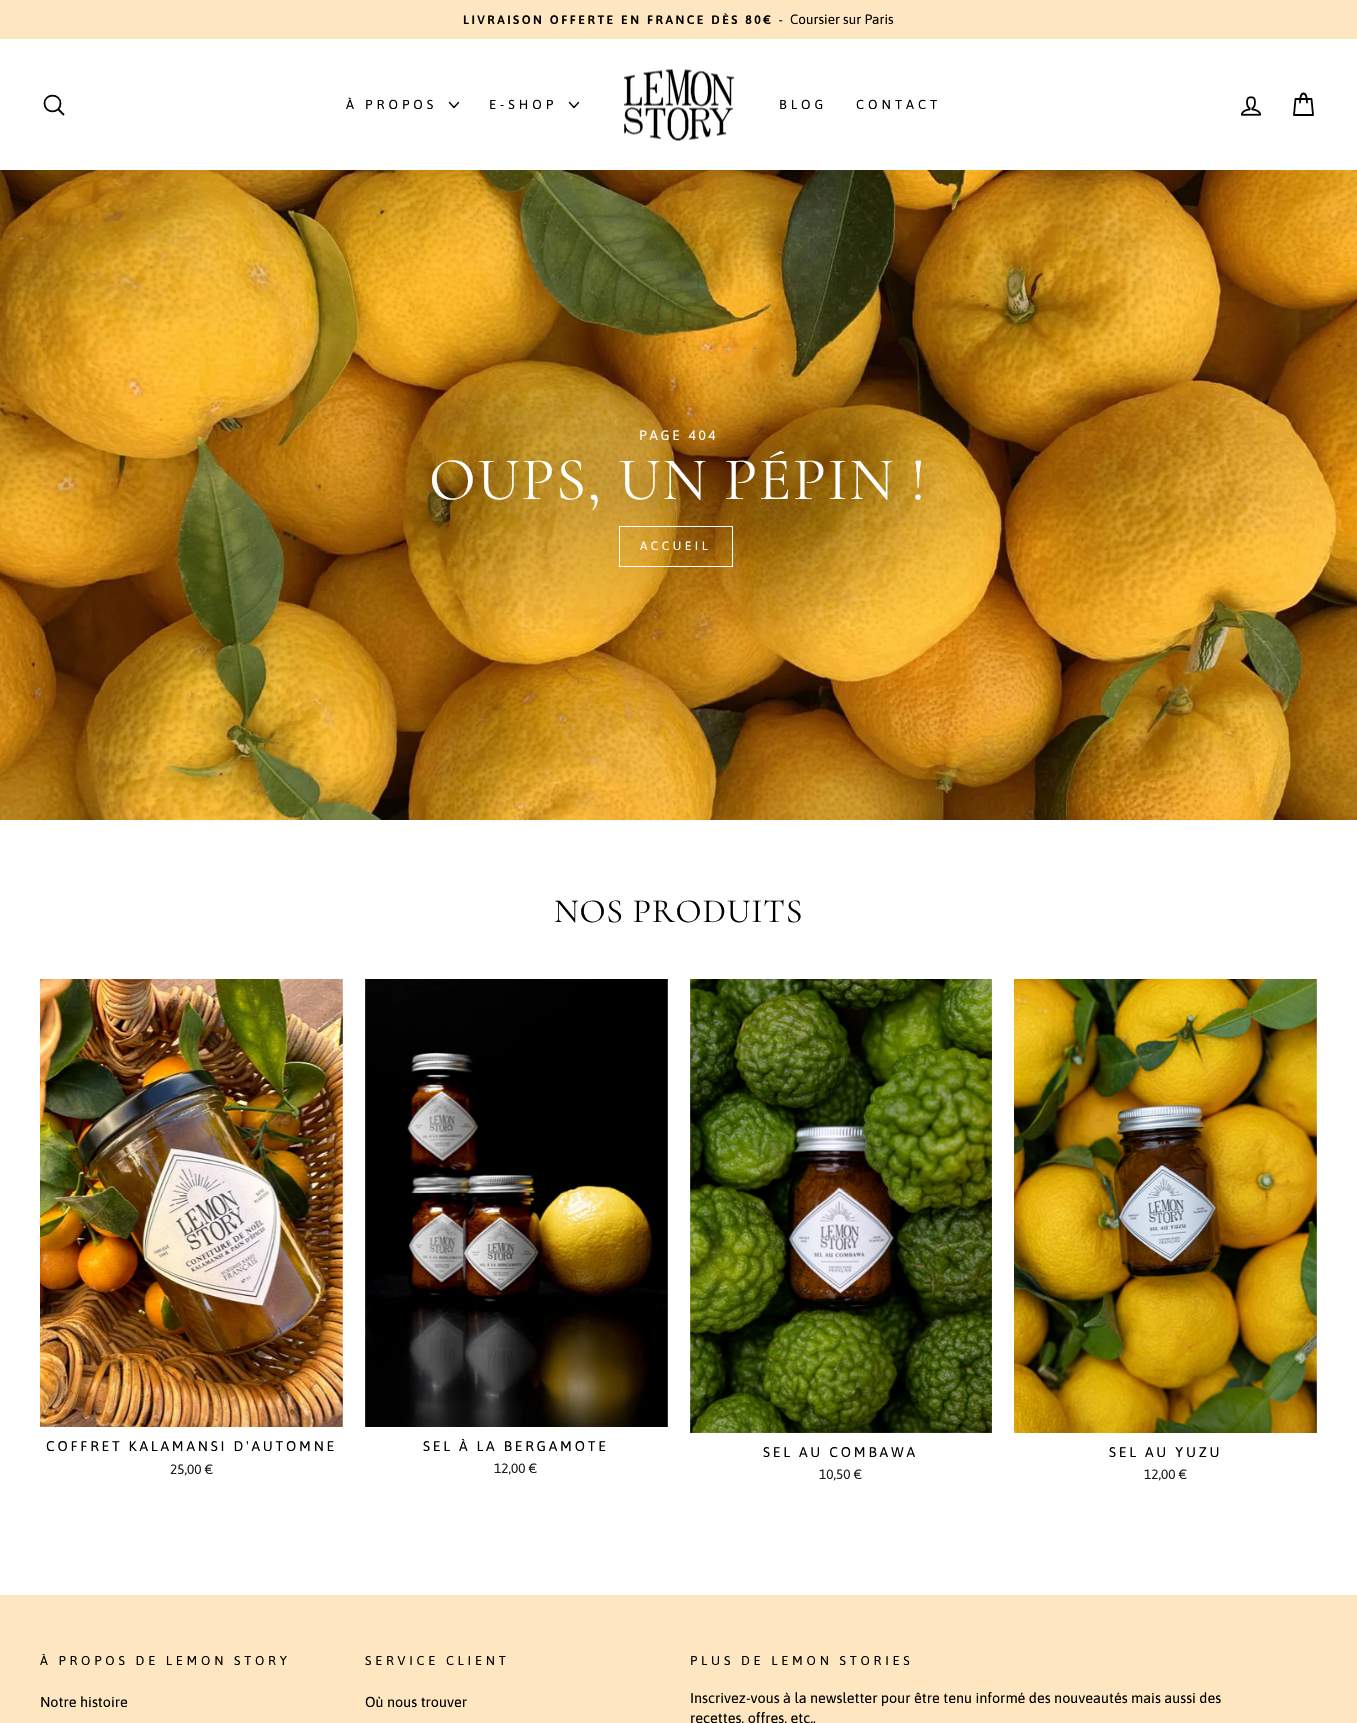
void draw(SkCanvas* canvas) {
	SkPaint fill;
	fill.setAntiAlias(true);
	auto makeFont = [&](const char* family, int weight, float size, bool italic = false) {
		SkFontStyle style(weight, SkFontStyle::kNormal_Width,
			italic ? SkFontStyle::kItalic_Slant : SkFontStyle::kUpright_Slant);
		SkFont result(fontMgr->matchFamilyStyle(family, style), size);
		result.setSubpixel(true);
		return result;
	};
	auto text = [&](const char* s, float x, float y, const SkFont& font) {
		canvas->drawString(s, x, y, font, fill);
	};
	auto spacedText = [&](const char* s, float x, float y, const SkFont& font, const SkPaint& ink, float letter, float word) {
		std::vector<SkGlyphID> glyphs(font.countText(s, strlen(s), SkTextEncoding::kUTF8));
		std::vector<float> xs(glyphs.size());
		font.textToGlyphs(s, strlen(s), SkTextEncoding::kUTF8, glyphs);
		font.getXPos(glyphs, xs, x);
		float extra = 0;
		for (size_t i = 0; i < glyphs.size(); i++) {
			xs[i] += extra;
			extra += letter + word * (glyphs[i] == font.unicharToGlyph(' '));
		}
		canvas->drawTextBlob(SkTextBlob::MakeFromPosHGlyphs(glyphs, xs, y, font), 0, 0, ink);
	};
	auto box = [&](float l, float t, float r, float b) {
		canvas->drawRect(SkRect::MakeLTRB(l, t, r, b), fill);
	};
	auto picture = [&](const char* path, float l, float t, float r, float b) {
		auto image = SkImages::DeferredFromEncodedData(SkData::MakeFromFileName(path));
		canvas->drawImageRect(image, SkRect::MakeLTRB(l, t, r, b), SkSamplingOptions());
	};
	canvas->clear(0xFFFFFFFF);
	fill.setColor(0xFFFDE6C0);
	box(0, 0, 1357, 39);
	fill.setStyle(SkPaint::kStroke_Style);
	fill.setStrokeWidth(1.8f);
	fill.setStrokeCap(SkPaint::kRound_Cap);
	fill.setStrokeJoin(SkPaint::kRound_Join);
	fill.setColor(0xFF000000);
	canvas->drawPath(SkPathBuilder().moveTo(60.5f, 103.5f).cubicTo(60.5f, 114, 44.5f, 114, 44.5f, 103.5f).cubicTo(44.5f, 93, 60.5f, 93, 60.5f, 103.5f).close().moveTo(63.5f, 114.5f).lineTo(58.5f, 109.5f).detach(), fill);
	fill.setStrokeWidth(1.4f);
	canvas->drawPath(SkPathBuilder().moveTo(449.5f, 102.5f).lineTo(454, 107.5f).lineTo(458.5f, 102.5f).detach(), fill);
	canvas->drawPath(SkPathBuilder().moveTo(569.5f, 102.5f).lineTo(574, 107.5f).lineTo(578.5f, 102.5f).detach(), fill);
	picture("image0.png", 624, 69, 734, 141);
	picture("image1.png", 1240, 96, 1262, 116);
	fill.setStrokeWidth(1.8f);
	canvas->drawPath(SkPathBuilder().moveTo(1300, 102.5f).cubicTo(1300, 90.5f, 1307, 90.5f, 1307, 102.5f).moveTo(1295.5f, 99).lineTo(1311.5f, 99).lineTo(1313, 115).lineTo(1294, 115).close().detach(), fill);
	picture("image2.png", 0, 170, 1357, 820);
	fill.setStrokeWidth(1);
	fill.setStrokeCap(SkPaint::kButt_Cap);
	fill.setStrokeJoin(SkPaint::kMiter_Join);
	fill.setColor(0xFFFFFFFF);
	canvas->drawRect(SkRect::MakeLTRB(619.5f, 526.5f, 732.5f, 566.5f), fill);
	picture("image3.png", 40, 979, 343, 1427);
	picture("image4.png", 365, 979, 668, 1427);
	picture("image5.png", 690, 979, 992, 1433);
	picture("image6.png", 1014, 979, 1317, 1433);
	fill.setStyle(SkPaint::kFill_Style);
	fill.setColor(0xFFFDE6C0);
	box(0, 1595, 1357, 1723);
	auto font1 = makeFont("Asap", 600, 12.25f);
	fill.setColor(0xFF000000);
	spacedText("LIVRAISON OFFERTE EN FRANCE DÈS 80€ -", 463, 24, font1, fill, 2.45f, 0);
	auto font2 = makeFont("Asap", 400, 13.5f);
	text("Coursier sur Paris", 790, 24, font2);
	auto font3 = makeFont("Asap", 400, 13);
	spacedText("À PROPOS", 346, 109, font3, fill, 4, 0);
	spacedText("E-SHOP", 489, 109, font3, fill, 4, 0);
	spacedText("BLOG", 779, 109, font3, fill, 4, 0);
	spacedText("CONTACT", 856, 109, font3, fill, 4, 0);
	fill.setColor(0xFFFFFFFF);
	spacedText("PAGE 404", 639, 440, font2, fill, 2.75f, 0);
	auto font4 = makeFont("Cormorant", 400, 61);
	spacedText("OUPS, UN PÉPIN !", 429, 499, font4, fill, 1.5f, 0);
	auto font5 = makeFont("Asap", 400, 12);
	spacedText("ACCUEIL", 640, 550, font5, fill, 3.5f, 0);
	auto font6 = makeFont("Cormorant", 400, 34);
	fill.setColor(0xFF000000);
	spacedText("NOS PRODUITS", 554, 922, font6, fill, 0.8f, 0);
	auto font7 = makeFont("Asap", 400, 14);
	spacedText("COFFRET KALAMANSI D'AUTOMNE", 46, 1451, font7, fill, 2.8f, 0);
	fill.setColor(0xFF1C1D1D);
	text("25,00 €", 170, 1474, font2);
	fill.setColor(0xFF000000);
	spacedText("SEL À LA BERGAMOTE", 423, 1451, font7, fill, 2.8f, 0);
	fill.setColor(0xFF1C1D1D);
	text("12,00 €", 494, 1473, font2);
	fill.setColor(0xFF000000);
	spacedText("SEL AU COMBAWA", 763, 1457, font7, fill, 2.8f, 0);
	fill.setColor(0xFF1C1D1D);
	text("10,50 €", 819, 1479, font2);
	fill.setColor(0xFF000000);
	spacedText("SEL AU YUZU", 1109, 1457, font7, fill, 2.8f, 0);
	fill.setColor(0xFF1C1D1D);
	text("12,00 €", 1144, 1479, font2);
	auto font8 = makeFont("Asap", 400, 12.75f);
	fill.setColor(0xFF000000);
	spacedText("À PROPOS DE LEMON STORY", 40, 1665, font8, fill, 3.8f, 0);
	auto font9 = makeFont("Asap", 400, 14.4f);
	text("Notre histoire", 40, 1707, font9);
	spacedText("SERVICE CLIENT", 365, 1665, font8, fill, 3.8f, 0);
	text("Où nous trouver", 365, 1707, font9);
	spacedText("PLUS DE LEMON STORIES", 690, 1665, font8, fill, 3.8f, 0);
	text("Inscrivez-vous à la newsletter pour être tenu informé des nouveautés mais aussi des", 690, 1703, font9);
	text("recettes, offres, etc..", 690, 1723, font9);
}
